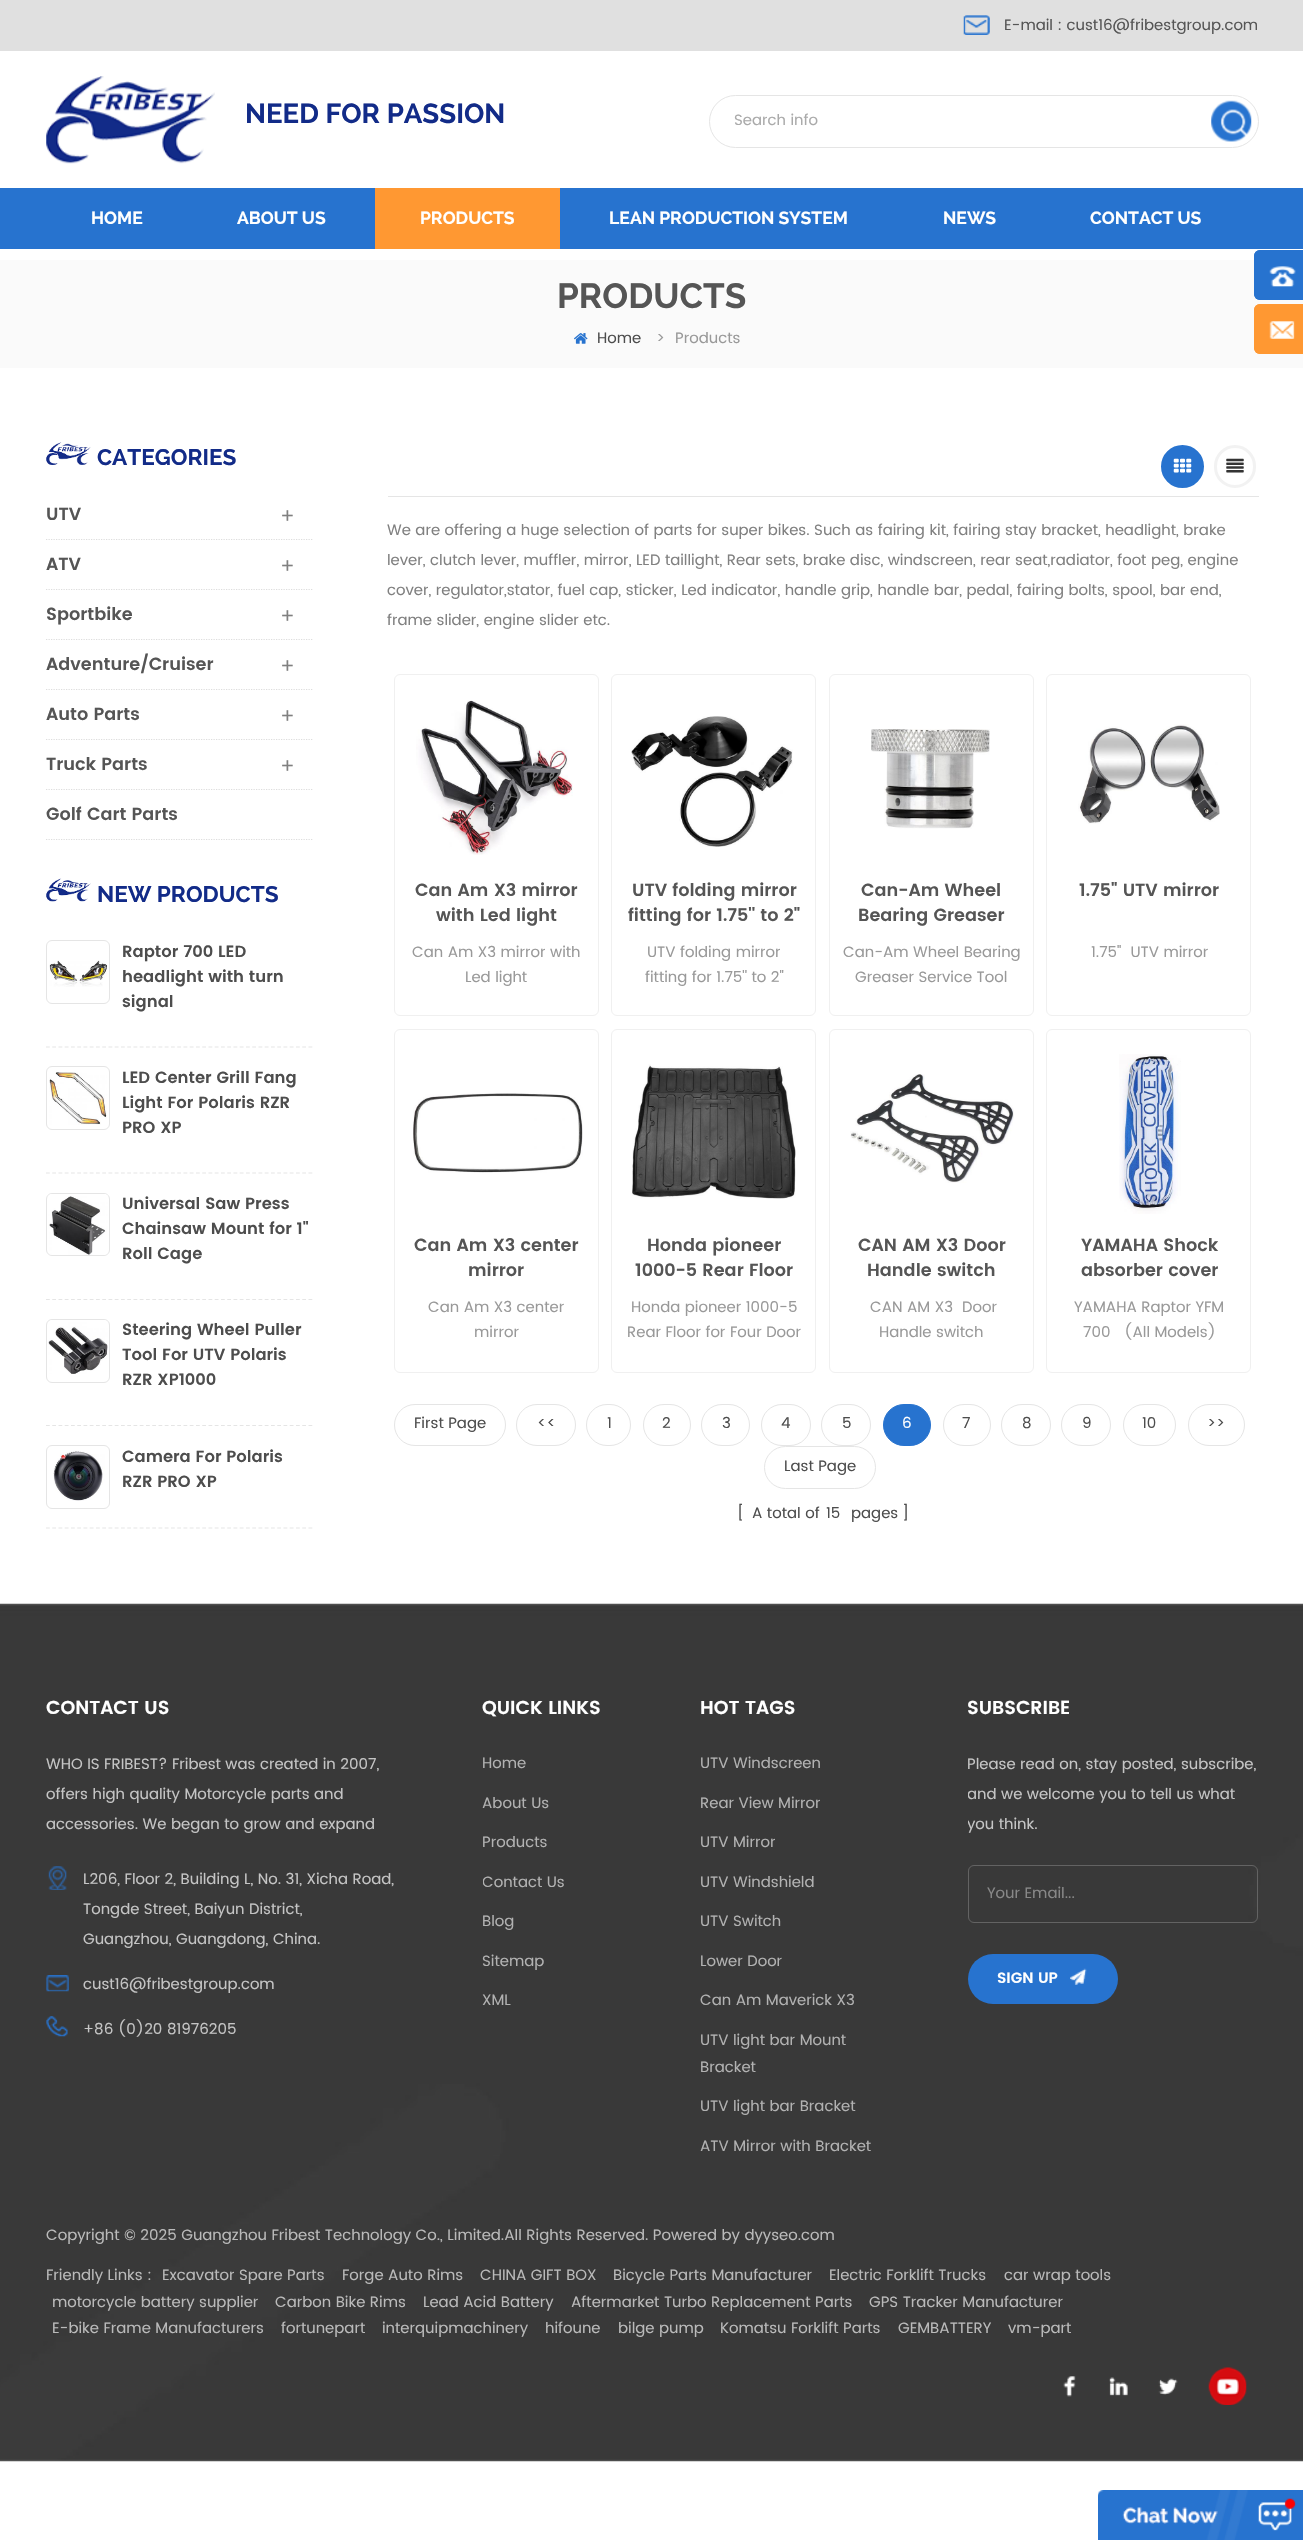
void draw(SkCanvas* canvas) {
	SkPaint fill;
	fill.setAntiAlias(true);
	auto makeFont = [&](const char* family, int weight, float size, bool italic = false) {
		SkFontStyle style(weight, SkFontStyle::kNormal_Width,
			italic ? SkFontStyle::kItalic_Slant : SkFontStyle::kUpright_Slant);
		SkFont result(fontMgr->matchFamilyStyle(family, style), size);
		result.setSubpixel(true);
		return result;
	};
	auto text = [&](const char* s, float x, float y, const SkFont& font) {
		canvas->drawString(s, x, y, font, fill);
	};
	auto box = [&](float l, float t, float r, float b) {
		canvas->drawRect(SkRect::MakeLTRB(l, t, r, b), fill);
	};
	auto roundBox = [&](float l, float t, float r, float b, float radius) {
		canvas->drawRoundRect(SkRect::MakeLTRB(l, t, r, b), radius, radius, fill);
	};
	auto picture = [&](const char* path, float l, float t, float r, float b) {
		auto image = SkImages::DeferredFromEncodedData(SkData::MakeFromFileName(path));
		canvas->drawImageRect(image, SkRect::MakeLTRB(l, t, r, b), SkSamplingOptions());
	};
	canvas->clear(0xFFFFFFFF);
	fill.setColor(0xFFE0E0E0);
	box(0, 0, 1303, 51);
	picture("image0.png", 963, 15, 990, 35);
	picture("image1.png", 46, 76, 215, 164);
	fill.setStyle(SkPaint::kStroke_Style);
	fill.setStrokeWidth(1);
	fill.setColor(0xFFE5E5E5);
	canvas->drawRoundRect(SkRect::MakeLTRB(709.5f, 95.5f, 1258.5f, 147.5f), 26, 26, fill);
	picture("image2.png", 1211, 100, 1252, 142);
	fill.setStyle(SkPaint::kFill_Style);
	fill.setColor(0xFF2773CF);
	box(0, 188, 1303, 249);
	fill.setColor(0xFFFF9832);
	box(375, 188, 560, 249);
	fill.setColor(0xFFFAFAFA);
	box(0, 260, 1303, 368);
	picture("image3.png", 574, 333, 588, 344);
	fill.setColor(0xFF2773CF);
	roundBox(1254, 250, 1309, 300, 6);
	picture("image4.png", 1269, 266, 1296, 287);
	fill.setStyle(SkPaint::kStroke_Style);
	fill.setStrokeWidth(3);
	canvas->drawRoundRect(SkRect::MakeLTRB(1255.5f, 251.5f, 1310.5f, 298.5f), 4.5f, 4.5f, fill);
	fill.setStyle(SkPaint::kFill_Style);
	fill.setColor(0xFFFF9832);
	roundBox(1254, 304, 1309, 354, 6);
	picture("image5.png", 1269, 321, 1295, 339);
	fill.setStyle(SkPaint::kStroke_Style);
	canvas->drawRoundRect(SkRect::MakeLTRB(1255.5f, 305.5f, 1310.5f, 352.5f), 4.5f, 4.5f, fill);
	picture("image6.png", 46, 442, 91, 465);
	fill.setStrokeWidth(1.2f);
	fill.setColor(0xFFDDDDDD);
	fill.setPathEffect(SkDashPathEffect::Make({{1.25f, 1.25f}}, 0));
	canvas->drawPath(SkPathBuilder().moveTo(46, 539.5f).lineTo(312.5f, 539.5f).detach(), fill);
	fill.setPathEffect(nullptr);
	fill.setPathEffect(SkDashPathEffect::Make({{1.25f, 1.25f}}, 0));
	canvas->drawPath(SkPathBuilder().moveTo(46, 589.5f).lineTo(312.5f, 589.5f).detach(), fill);
	fill.setPathEffect(nullptr);
	fill.setPathEffect(SkDashPathEffect::Make({{1.25f, 1.25f}}, 0));
	canvas->drawPath(SkPathBuilder().moveTo(46, 639.5f).lineTo(312.5f, 639.5f).detach(), fill);
	fill.setPathEffect(nullptr);
	fill.setPathEffect(SkDashPathEffect::Make({{1.25f, 1.25f}}, 0));
	canvas->drawPath(SkPathBuilder().moveTo(46, 689.5f).lineTo(312.5f, 689.5f).detach(), fill);
	fill.setPathEffect(nullptr);
	fill.setPathEffect(SkDashPathEffect::Make({{1.25f, 1.25f}}, 0));
	canvas->drawPath(SkPathBuilder().moveTo(46, 739.5f).lineTo(312.5f, 739.5f).detach(), fill);
	fill.setPathEffect(nullptr);
	fill.setPathEffect(SkDashPathEffect::Make({{1.25f, 1.25f}}, 0));
	canvas->drawPath(SkPathBuilder().moveTo(46, 789.5f).lineTo(312.5f, 789.5f).detach(), fill);
	fill.setPathEffect(nullptr);
	fill.setPathEffect(SkDashPathEffect::Make({{1.25f, 1.25f}}, 0));
	canvas->drawPath(SkPathBuilder().moveTo(46, 839.5f).lineTo(312.5f, 839.5f).detach(), fill);
	fill.setPathEffect(nullptr);
	picture("image7.png", 46, 878, 91, 902);
	fill.setColor(0xFFE5E5E5);
	fill.setPathEffect(SkDashPathEffect::Make({{3.75f, 2.5f}}, 0));
	canvas->drawPath(SkPathBuilder().moveTo(46, 1047).lineTo(312.5f, 1047).detach(), fill);
	fill.setPathEffect(nullptr);
	fill.setStrokeWidth(1);
	canvas->drawRoundRect(SkRect::MakeLTRB(46.5f, 940.5f, 109.5f, 1003.5f), 5.5f, 5.5f, fill);
	picture("image8.png", 49, 960, 107, 987);
	fill.setStrokeWidth(1.2f);
	fill.setPathEffect(SkDashPathEffect::Make({{3.75f, 2.5f}}, 0));
	canvas->drawPath(SkPathBuilder().moveTo(46, 1173).lineTo(312.5f, 1173).detach(), fill);
	fill.setPathEffect(nullptr);
	fill.setStrokeWidth(1);
	canvas->drawRoundRect(SkRect::MakeLTRB(46.5f, 1066.5f, 109.5f, 1129.5f), 5.5f, 5.5f, fill);
	picture("image9.png", 49, 1072, 107, 1125);
	fill.setStrokeWidth(1.2f);
	fill.setPathEffect(SkDashPathEffect::Make({{3.75f, 2.5f}}, 0));
	canvas->drawPath(SkPathBuilder().moveTo(46, 1299.5f).lineTo(312.5f, 1299.5f).detach(), fill);
	fill.setPathEffect(nullptr);
	fill.setStrokeWidth(1);
	canvas->drawRoundRect(SkRect::MakeLTRB(46.5f, 1193.5f, 109.5f, 1255.5f), 5.5f, 5.5f, fill);
	picture("image10.png", 48, 1194, 108, 1255);
	fill.setStrokeWidth(1.2f);
	fill.setPathEffect(SkDashPathEffect::Make({{3.75f, 2.5f}}, 0));
	canvas->drawPath(SkPathBuilder().moveTo(46, 1425.5f).lineTo(312.5f, 1425.5f).detach(), fill);
	fill.setPathEffect(nullptr);
	fill.setStrokeWidth(1);
	canvas->drawRoundRect(SkRect::MakeLTRB(46.5f, 1319.5f, 109.5f, 1382.5f), 5.5f, 5.5f, fill);
	picture("image11.png", 48, 1320, 108, 1374);
	fill.setStrokeWidth(1.2f);
	fill.setPathEffect(SkDashPathEffect::Make({{3.75f, 2.5f}}, 0));
	canvas->drawPath(SkPathBuilder().moveTo(46, 1528).lineTo(312.5f, 1528).detach(), fill);
	fill.setPathEffect(nullptr);
	fill.setStrokeWidth(1);
	canvas->drawRoundRect(SkRect::MakeLTRB(46.5f, 1445.5f, 109.5f, 1508.5f), 5.5f, 5.5f, fill);
	picture("image12.png", 53, 1451, 105, 1501);
	fill.setStyle(SkPaint::kFill_Style);
	fill.setColor(0xFF2773CF);
	canvas->drawCircle(1182.5f, 466.5f, 20, fill);
	fill.setStyle(SkPaint::kStroke_Style);
	fill.setStrokeWidth(3);
	canvas->drawCircle(1182.5f, 466.5f, 20, fill);
	picture("image13.png", 1173, 458, 1192, 473);
	fill.setColor(0xFFF2F2F2);
	canvas->drawRoundRect(SkRect::MakeLTRB(1215.5f, 446.5f, 1254.5f, 486.5f), 19.5f, 19.5f, fill);
	picture("image14.png", 1226, 458, 1244, 473);
	fill.setStyle(SkPaint::kFill_Style);
	fill.setColor(0xFFE5E5E5);
	box(388, 496, 1259, 497);
	fill.setStyle(SkPaint::kStroke_Style);
	fill.setStrokeWidth(1);
	fill.setColor(0xFFF0F0F0);
	canvas->drawRoundRect(SkRect::MakeLTRB(394.5f, 674.5f, 598.5f, 1015.5f), 5.5f, 5.5f, fill);
	picture("image15.png", 416, 700, 573, 855);
	canvas->drawRoundRect(SkRect::MakeLTRB(611.5f, 674.5f, 815.5f, 1015.5f), 5.5f, 5.5f, fill);
	picture("image16.png", 631, 716, 793, 847);
	canvas->drawRoundRect(SkRect::MakeLTRB(829.5f, 674.5f, 1033.5f, 1015.5f), 5.5f, 5.5f, fill);
	picture("image17.png", 871, 729, 990, 829);
	canvas->drawRoundRect(SkRect::MakeLTRB(1046.5f, 674.5f, 1250.5f, 1015.5f), 5.5f, 5.5f, fill);
	picture("image18.png", 1078, 724, 1220, 824);
	canvas->drawRoundRect(SkRect::MakeLTRB(394.5f, 1029.5f, 598.5f, 1372.5f), 5.5f, 5.5f, fill);
	picture("image19.png", 413, 1093, 583, 1173);
	canvas->drawRoundRect(SkRect::MakeLTRB(611.5f, 1029.5f, 815.5f, 1372.5f), 5.5f, 5.5f, fill);
	picture("image20.png", 632, 1064, 796, 1199);
	canvas->drawRoundRect(SkRect::MakeLTRB(829.5f, 1029.5f, 1033.5f, 1372.5f), 5.5f, 5.5f, fill);
	picture("image21.png", 850, 1074, 1014, 1183);
	canvas->drawRoundRect(SkRect::MakeLTRB(1046.5f, 1029.5f, 1250.5f, 1372.5f), 5.5f, 5.5f, fill);
	picture("image22.png", 1119, 1054, 1181, 1214);
	fill.setColor(0xFFE5E5E5);
	canvas->drawRoundRect(SkRect::MakeLTRB(394.5f, 1404.5f, 505.5f, 1445.5f), 20.5f, 20.5f, fill);
	canvas->drawRoundRect(SkRect::MakeLTRB(516.5f, 1404.5f, 575.5f, 1445.5f), 20.5f, 20.5f, fill);
	canvas->drawRoundRect(SkRect::MakeLTRB(586.5f, 1404.5f, 630.5f, 1445.5f), 20.5f, 20.5f, fill);
	canvas->drawRoundRect(SkRect::MakeLTRB(643.5f, 1404.5f, 690.5f, 1445.5f), 20.5f, 20.5f, fill);
	canvas->drawRoundRect(SkRect::MakeLTRB(701.5f, 1404.5f, 749.5f, 1445.5f), 20.5f, 20.5f, fill);
	canvas->drawRoundRect(SkRect::MakeLTRB(761.5f, 1404.5f, 810.5f, 1445.5f), 20.5f, 20.5f, fill);
	canvas->drawRoundRect(SkRect::MakeLTRB(821.5f, 1404.5f, 870.5f, 1445.5f), 20.5f, 20.5f, fill);
	fill.setStyle(SkPaint::kFill_Style);
	fill.setColor(0xFF2773CF);
	canvas->drawRoundRect(SkRect::MakeLTRB(883.5f, 1404.5f, 930.5f, 1445.5f), 20.5f, 20.5f, fill);
	fill.setStyle(SkPaint::kStroke_Style);
	canvas->drawRoundRect(SkRect::MakeLTRB(883.5f, 1404.5f, 930.5f, 1445.5f), 20.5f, 20.5f, fill);
	fill.setColor(0xFFE5E5E5);
	canvas->drawRoundRect(SkRect::MakeLTRB(943.5f, 1404.5f, 990.5f, 1445.5f), 20.5f, 20.5f, fill);
	canvas->drawRoundRect(SkRect::MakeLTRB(1001.5f, 1404.5f, 1050.5f, 1445.5f), 20.5f, 20.5f, fill);
	canvas->drawRoundRect(SkRect::MakeLTRB(1061.5f, 1404.5f, 1110.5f, 1445.5f), 20.5f, 20.5f, fill);
	canvas->drawRoundRect(SkRect::MakeLTRB(1123.5f, 1404.5f, 1175.5f, 1445.5f), 20.5f, 20.5f, fill);
	canvas->drawRoundRect(SkRect::MakeLTRB(1188.5f, 1404.5f, 1244.5f, 1445.5f), 20.5f, 20.5f, fill);
	canvas->drawRoundRect(SkRect::MakeLTRB(764.5f, 1446.5f, 875.5f, 1488.5f), 21, 21, fill);
	picture("image23.png", 0, 1603, 1303, 2462);
	picture("image24.png", 48, 1866, 67, 1890);
	picture("image25.png", 46, 1975, 69, 1992);
	picture("image26.png", 46, 2016, 68, 2037);
	fill.setColor(0xFF636363);
	canvas->drawRoundRect(SkRect::MakeLTRB(968.5f, 1865.5f, 1257.5f, 1922.5f), 5.5f, 5.5f, fill);
	fill.setStyle(SkPaint::kFill_Style);
	fill.setColor(0xFF2773CF);
	roundBox(968, 1954, 1118, 2004, 25);
	picture("image27.png", 1070, 1968, 1087, 1985);
	picture("image28.png", 1063, 2376, 1076, 2397);
	picture("image29.png", 1109, 2377, 1128, 2396);
	picture("image30.png", 1158, 2378, 1178, 2395);
	picture("image31.png", 1208, 2367, 1247, 2405);
	picture("image32.png", 1098, 2490, 1303, 2540);
	auto font1 = makeFont("Poppins", 400, 15);
	fill.setColor(0xFF555555);
	text("E-mail : cust16@fribestgroup.com", 1004, 30, font1);
	auto font2 = makeFont("Raleway", 700, 27.5f);
	fill.setColor(0xFF122B88);
	text("NEED FOR PASSION", 245, 123, font2);
	fill.setColor(0xFFAAAAAA);
	text("Search info", 734, 125, font1);
	auto font3 = makeFont("Raleway", 700, 17.5f);
	fill.setColor(0xFFFFFFFF);
	text("HOME", 91, 224, font3);
	text("ABOUT US", 237, 224, font3);
	text("PRODUCTS", 420, 224, font3);
	text("LEAN PRODUCTION SYSTEM", 609, 224, font3);
	text("NEWS", 943, 224, font3);
	text("CONTACT US", 1090, 224, font3);
	auto font4 = makeFont("Raleway", 700, 35);
	fill.setColor(0xFF555555);
	text("PRODUCTS", 557, 308, font4);
	fill.setColor(0xFF4D4D4D);
	text("Home", 597, 343, font1);
	fill.setColor(0xFF999999);
	text(">", 656, 343, font1);
	text("Products", 675, 343, font1);
	auto font5 = makeFont("Raleway", 700, 22.5f);
	fill.setColor(0xFF122B88);
	text("CATEGORIES", 97, 465, font5);
	auto font6 = makeFont("Poppins", 600, 17.5f);
	fill.setColor(0xFF555555);
	text("UTV", 46, 520, font6);
	auto font7 = makeFont("Liberation Serif", 700, 22.5f);
	fill.setColor(0xFF808080);
	text("+", 281, 523, font7);
	fill.setColor(0xFF555555);
	text("ATV", 46, 570, font6);
	fill.setColor(0xFF808080);
	text("+", 281, 573, font7);
	fill.setColor(0xFF555555);
	text("Sportbike", 46, 620, font6);
	fill.setColor(0xFF808080);
	text("+", 281, 623, font7);
	fill.setColor(0xFF555555);
	text("Adventure/Cruiser", 46, 670, font6);
	fill.setColor(0xFF808080);
	text("+", 281, 673, font7);
	fill.setColor(0xFF555555);
	text("Auto Parts", 46, 720, font6);
	fill.setColor(0xFF808080);
	text("+", 281, 723, font7);
	fill.setColor(0xFF555555);
	text("Truck Parts", 46, 770, font6);
	fill.setColor(0xFF808080);
	text("+", 281, 773, font7);
	fill.setColor(0xFF555555);
	text("Golf Cart Parts", 46, 820, font6);
	fill.setColor(0xFF122B88);
	text("NEW PRODUCTS", 97, 902, font5);
	auto font8 = makeFont("Poppins", 600, 16.25f);
	fill.setColor(0xFF4D4D4D);
	text("Raptor 700 LED", 122, 957, font8);
	text("headlight with turn", 122, 982, font8);
	text("signal", 122, 1007, font8);
	text("LED Center Grill Fang", 122, 1083, font8);
	text("Light For Polaris RZR", 122, 1108, font8);
	text("PRO XP", 122, 1133, font8);
	text("Universal Saw Press", 122, 1209, font8);
	text("Chainsaw Mount for 1\"", 122, 1234, font8);
	text("Roll Cage", 122, 1259, font8);
	text("Steering Wheel Puller", 122, 1335, font8);
	text("Tool For UTV Polaris", 122, 1360, font8);
	text("RZR XP1000", 122, 1385, font8);
	text("Camera For Polaris", 122, 1462, font8);
	text("RZR PRO XP", 122, 1487, font8);
	fill.setColor(0xFF808080);
	text("We are offering a huge selection of parts for super bikes. Such as fairing kit, fairing stay bracket, headlight, brake", 387, 535, font1);
	text("lever, clutch lever, muffler, mirror, LED taillight, Rear sets, brake disc, windscreen, rear seat,radiator, foot peg, engine", 387, 565, font1);
	text("cover, regulator,stator, fuel cap, sticker, Led indicator, handle grip, handle bar, pedal, fairing bolts, spool, bar end,", 387, 595, font1);
	text("frame slider, engine slider etc.", 387, 625, font1);
	fill.setColor(0xFF555555);
	text("Can Am X3 mirror", 415, 896, font6);
	text("with Led light", 436, 921, font6);
	fill.setColor(0xFF999999);
	text("Can Am X3 mirror with", 412, 957, font1);
	text("Led light", 465, 982, font1);
	fill.setColor(0xFF555555);
	text("UTV folding mirror", 632, 896, font6);
	text("fitting for 1.75'' to 2\"", 628, 921, font6);
	fill.setColor(0xFF999999);
	text("UTV folding mirror", 647, 957, font1);
	text("fitting for 1.75'' to 2\"", 645, 982, font1);
	fill.setColor(0xFF555555);
	text("Can-Am Wheel", 861, 896, font6);
	text("Bearing Greaser", 858, 921, font6);
	fill.setColor(0xFF999999);
	text("Can-Am Wheel Bearing", 843, 957, font1);
	text("Greaser Service Tool", 855, 982, font1);
	fill.setColor(0xFF555555);
	text("1.75\" UTV mirror", 1079, 896, font6);
	fill.setColor(0xFF999999);
	text("1.75\"  UTV mirror", 1091, 957, font1);
	fill.setColor(0xFF555555);
	text("Can Am X3 center", 414, 1251, font6);
	text("mirror", 468, 1276, font6);
	fill.setColor(0xFF999999);
	text("Can Am X3 center", 428, 1312, font1);
	text("mirror", 474, 1337, font1);
	fill.setColor(0xFF555555);
	text("Honda pioneer", 647, 1251, font6);
	text("1000-5 Rear Floor", 635, 1276, font6);
	fill.setColor(0xFF999999);
	text("Honda pioneer 1000-5", 631, 1312, font1);
	text("Rear Floor for Four Door", 627, 1337, font1);
	fill.setColor(0xFF555555);
	text("CAN AM X3 Door", 858, 1251, font6);
	text("Handle switch", 867, 1276, font6);
	fill.setColor(0xFF999999);
	text("CAN AM X3  Door", 870, 1312, font1);
	text("Handle switch", 879, 1337, font1);
	fill.setColor(0xFF555555);
	text("YAMAHA Shock", 1081, 1251, font6);
	text("absorber cover", 1081, 1276, font6);
	fill.setColor(0xFF999999);
	text("YAMAHA Raptor YFM", 1074, 1312, font1);
	text("700   (All Models)", 1083, 1337, font1);
	fill.setColor(0xFF4D4D4D);
	text("First Page", 414, 1428, font1);
	text("<<", 537, 1428, font1);
	text("1", 607, 1428, font1);
	text("2", 662, 1428, font1);
	text("3", 722, 1428, font1);
	text("4", 781, 1428, font1);
	text("5", 842, 1428, font1);
	fill.setColor(0xFFFFFFFF);
	text("6", 902, 1428, font1);
	fill.setColor(0xFF4D4D4D);
	text("7", 962, 1428, font1);
	text("8", 1022, 1428, font1);
	text("9", 1082, 1428, font1);
	text("10", 1142, 1428, font1);
	text(">>", 1207, 1428, font1);
	text("Last Page", 784, 1471, font1);
	text("[", 737, 1518, font1);
	text("A total of", 752, 1518, font1);
	text("15", 826, 1518, font1);
	text("pages", 851, 1518, font1);
	text("]", 902, 1518, font1);
	auto font9 = makeFont("Poppins", 600, 18.75f);
	fill.setColor(0xFFFFFFFF);
	text("CONTACT US", 46, 1714, font9);
	fill.setColor(0xFFC5C5C5);
	text("WHO IS FRIBEST? Fribest was created in 2007,", 46, 1769, font1);
	text("offers high quality Motorcycle parts and", 46, 1799, font1);
	text("accessories. We began to grow and expand", 46, 1829, font1);
	text("L206, Floor 2, Building L, No. 31, Xicha Road,", 83, 1884, font1);
	text("Tongde Street, Baiyun District,", 83, 1914, font1);
	text("Guangzhou, Guangdong, China.", 83, 1944, font1);
	text("cust16@fribestgroup.com", 83, 1989, font1);
	text("+86 (0)20 81976205", 83, 2034, font1);
	fill.setColor(0xFFFFFFFF);
	text("QUICK LINKS", 482, 1714, font9);
	fill.setColor(0xFFB2B2B2);
	text("Home", 482, 1768, font1);
	text("About Us", 482, 1808, font1);
	text("Products", 482, 1847, font1);
	canvas->save();
	canvas->clipRect(SkRect::MakeLTRB(483, 1750, 613, 2028));
	text("Contact Us", 482, 1887, font1);
	canvas->restore();
	text("Blog", 482, 1926, font1);
	text("Sitemap", 482, 1966, font1);
	text("XML", 482, 2005, font1);
	fill.setColor(0xFFFFFFFF);
	text("HOT TAGS", 700, 1714, font9);
	fill.setColor(0xFFB2B2B2);
	text("UTV Windscreen", 700, 1768, font1);
	text("Rear View Mirror", 700, 1808, font1);
	text("UTV Mirror", 700, 1847, font1);
	text("UTV Windshield", 700, 1887, font1);
	text("UTV Switch", 700, 1926, font1);
	text("Lower Door", 700, 1966, font1);
	text("Can Am Maverick X3", 700, 2005, font1);
	text("UTV light bar Mount", 700, 2045, font1);
	text("Bracket", 700, 2072, font1);
	text("UTV light bar Bracket", 700, 2111, font1);
	text("ATV Mirror with Bracket", 700, 2151, font1);
	fill.setColor(0xFFFFFFFF);
	text("SUBSCRIBE", 967, 1714, font9);
	fill.setColor(0xFFC5C5C5);
	text("Please read on, stay posted, subscribe,", 967, 1769, font1);
	canvas->save();
	canvas->clipRect(SkRect::MakeLTRB(968, 1750, 1258, 2004));
	text("and we welcome you to tell us what", 967, 1799, font1);
	text("you think.", 967, 1829, font1);
	canvas->restore();
	fill.setColor(0xFF888888);
	text("Your Email...", 987, 1898, font1);
	auto font10 = makeFont("Poppins", 600, 15);
	fill.setColor(0xFFFFFFFF);
	text("SIGN UP", 997, 1983, font10);
	fill.setColor(0xFFBABABA);
	text("Copyright © 2025 Guangzhou Fribest Technology Co., Limited.All Rights Reserved. Powered by dyyseo.com", 46, 2240, font1);
	text("Friendly Links :", 46, 2280, font1);
	text("Excavator Spare Parts", 162, 2280, font1);
	text("Forge Auto Rims", 342, 2280, font1);
	text("CHINA GIFT BOX", 480, 2280, font1);
	text("Bicycle Parts Manufacturer", 613, 2280, font1);
	text("Electric Forklift Trucks", 829, 2280, font1);
	text("car wrap tools", 1004, 2280, font1);
	text("motorcycle battery supplier", 52, 2307, font1);
	text("Carbon Bike Rims", 275, 2307, font1);
	text("Lead Acid Battery", 423, 2307, font1);
	text("Aftermarket Turbo Replacement Parts", 571, 2307, font1);
	text("GPS Tracker Manufacturer", 869, 2307, font1);
	text("E-bike Frame Manufacturers", 52, 2333, font1);
	text("fortunepart", 281, 2333, font1);
	text("interquipmachinery", 382, 2333, font1);
	text("hifoune", 545, 2333, font1);
	text("bilge pump", 618, 2333, font1);
	text("Komatsu Forklift Parts", 720, 2333, font1);
	text("GEMBATTERY", 898, 2333, font1);
	text("vm-part", 1008, 2333, font1);
}
